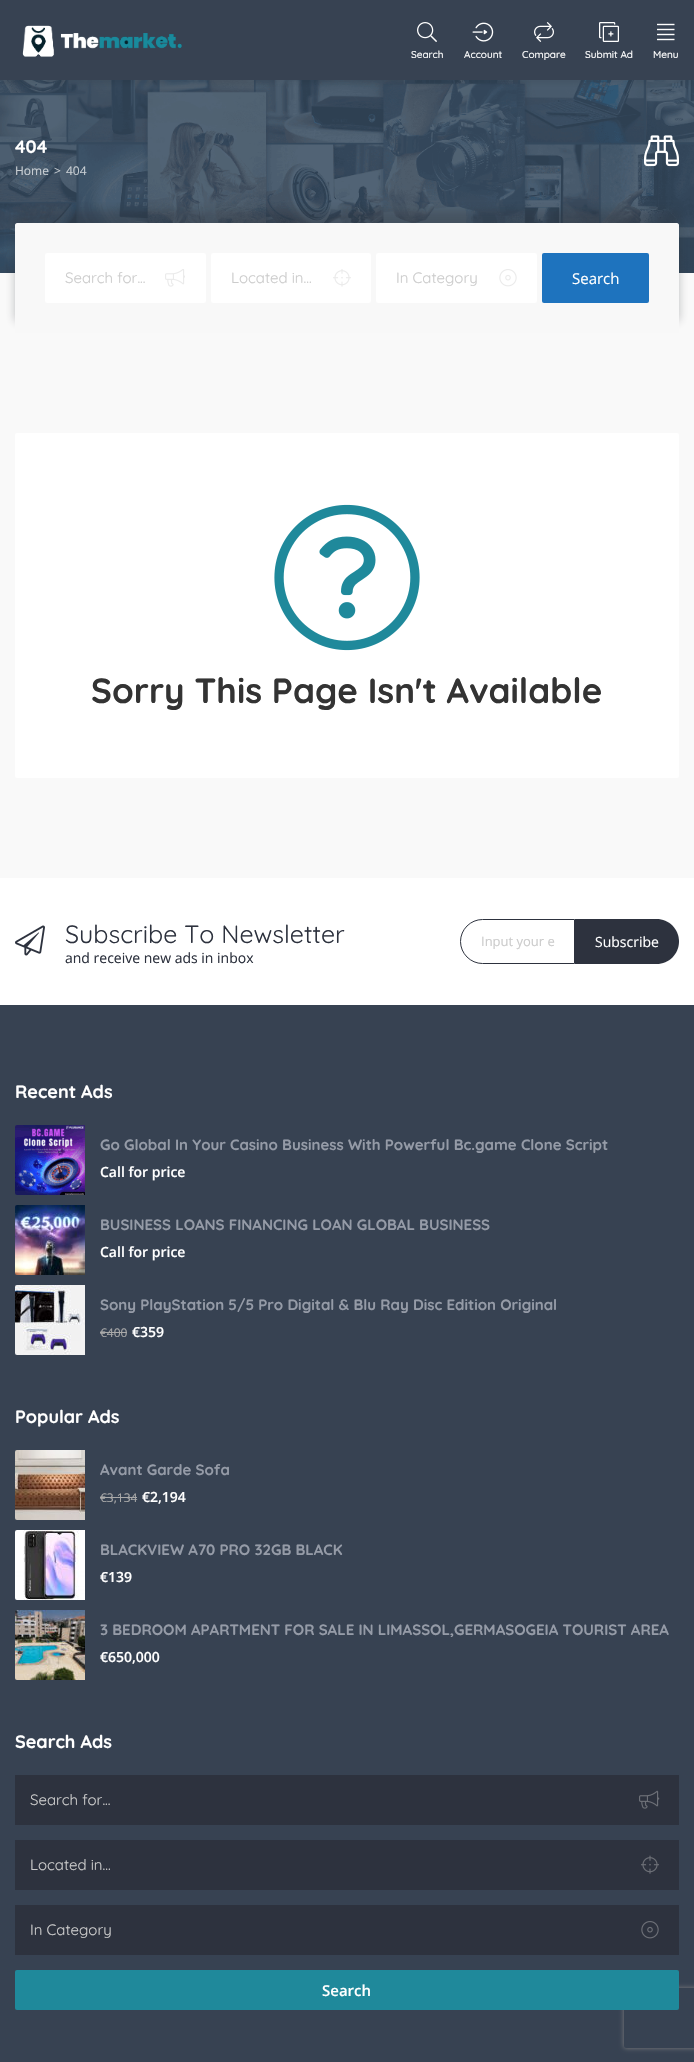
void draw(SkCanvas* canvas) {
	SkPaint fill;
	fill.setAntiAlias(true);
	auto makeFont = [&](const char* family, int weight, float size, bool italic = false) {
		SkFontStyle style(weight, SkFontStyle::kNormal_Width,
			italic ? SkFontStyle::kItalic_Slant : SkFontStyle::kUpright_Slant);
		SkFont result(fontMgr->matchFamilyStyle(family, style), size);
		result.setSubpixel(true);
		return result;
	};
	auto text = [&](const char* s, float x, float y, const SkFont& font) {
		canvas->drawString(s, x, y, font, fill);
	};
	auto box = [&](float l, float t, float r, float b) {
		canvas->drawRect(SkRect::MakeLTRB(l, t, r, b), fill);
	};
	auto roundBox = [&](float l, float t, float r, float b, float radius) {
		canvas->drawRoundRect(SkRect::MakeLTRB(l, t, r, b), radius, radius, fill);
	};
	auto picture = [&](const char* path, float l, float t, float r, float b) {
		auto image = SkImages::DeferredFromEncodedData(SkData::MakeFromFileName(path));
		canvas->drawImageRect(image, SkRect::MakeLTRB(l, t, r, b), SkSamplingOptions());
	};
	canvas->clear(0xFFF9F9F9);
	picture("image6.png", 0, 80, 694, 273);
	fill.setColor(0x0F171717);
	fill.setMaskFilter(SkMaskFilter::MakeBlur(kNormal_SkBlurStyle, 2));
	canvas->drawRect(SkRect::MakeLTRB(0, 4, 694, 84), fill);
	fill.setMaskFilter(nullptr);
	fill.setColor(0xFF374252);
	box(0, 0, 694, 80);
	picture("image0.png", 22, 25, 182, 57);
	picture("image1.png", 417, 22, 437, 42);
	picture("image2.png", 472, 22, 494, 42);
	picture("image3.png", 534, 22, 554, 42);
	picture("image4.png", 599, 22, 619, 42);
	picture("image5.png", 657, 23, 675, 41);
	picture("image7.png", 644, 135, 679, 167);
	fill.setColor(0x4D2A2F36);
	fill.setMaskFilter(SkMaskFilter::MakeBlur(kNormal_SkBlurStyle, 5));
	canvas->drawRoundRect(SkRect::MakeLTRB(15, 211, 679, 321), 2, 2, fill);
	fill.setMaskFilter(nullptr);
	fill.setColor(0xFFF8F8F8);
	canvas->drawPath(SkPathBuilder().moveTo(17, 223).lineTo(677, 223).cubicTo(678, 223, 679, 224, 679, 225).lineTo(679, 333).lineTo(15, 333).lineTo(15, 225).cubicTo(15, 224, 16, 223, 17, 223).close().detach(), fill);
	fill.setColor(0xFFFFFFFF);
	roundBox(45, 253, 206, 303, 2);
	picture("image8.png", 165, 269, 185, 287);
	roundBox(211, 253, 371, 303, 2);
	picture("image9.png", 333, 269, 351, 287);
	roundBox(376, 253, 537, 303, 2);
	picture("image10.png", 499, 269, 517, 287);
	fill.setColor(0xFF1E73BE);
	roundBox(542, 253, 649, 303, 2);
	fill.setColor(0xFFFFFFFF);
	roundBox(15, 433, 679, 778, 2);
	picture("image11.png", 274, 504, 420, 651);
	box(0, 878, 694, 1005);
	picture("image12.png", 15, 925, 45, 956);
	fill.setStyle(SkPaint::kStroke_Style);
	fill.setStrokeWidth(1);
	fill.setColor(0xFF2D323E);
	canvas->drawPath(SkPathBuilder().moveTo(482.5f, 919.5f).lineTo(574.5f, 919.5f).lineTo(574.5f, 963.5f).lineTo(482.5f, 963.5f).cubicTo(470.5f, 963.5f, 460.5f, 953.5f, 460.5f, 941.5f).cubicTo(460.5f, 929.5f, 470.5f, 919.5f, 482.5f, 919.5f).close().detach(), fill);
	fill.setStyle(SkPaint::kFill_Style);
	canvas->drawPath(SkPathBuilder().moveTo(575, 919).lineTo(656.5f, 919).cubicTo(669, 919, 679, 929, 679, 941.5f).cubicTo(679, 954, 669, 964, 656.5f, 964).lineTo(575, 964).close().detach(), fill);
	fill.setColor(0xFF374252);
	box(0, 1005, 694, 2062);
	picture("image13.png", 15, 1125, 85, 1195);
	picture("image14.png", 15, 1205, 85, 1275);
	picture("image15.png", 15, 1285, 85, 1355);
	fill.setColor(0xFFAAAAAA);
	box(100, 1332, 127, 1333);
	picture("image16.png", 15, 1450, 85, 1520);
	box(100, 1497, 137, 1498);
	picture("image17.png", 15, 1530, 85, 1600);
	picture("image18.png", 15, 1610, 85, 1680);
	fill.setColor(0xFF2D323E);
	box(15, 1775, 679, 1825);
	picture("image19.png", 639, 1790, 660, 1809);
	box(15, 1840, 679, 1890);
	picture("image20.png", 641, 1855, 659, 1874);
	box(15, 1905, 679, 1955);
	picture("image21.png", 641, 1921, 659, 1939);
	canvas->save();
	canvas->clipPath(SkPathBuilder(SkPathFillType::kEvenOdd).moveTo(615, 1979).lineTo(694, 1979).lineTo(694, 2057).lineTo(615, 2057).close().moveTo(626, 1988).lineTo(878, 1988).cubicTo(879, 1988, 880, 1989, 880, 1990).lineTo(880, 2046).cubicTo(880, 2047, 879, 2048, 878, 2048).lineTo(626, 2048).cubicTo(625, 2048, 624, 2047, 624, 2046).lineTo(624, 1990).cubicTo(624, 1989, 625, 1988, 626, 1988).close().detach(), true);
	fill.setColor(0xFF808080);
	fill.setMaskFilter(SkMaskFilter::MakeBlur(kNormal_SkBlurStyle, 2.5f));
	canvas->drawRoundRect(SkRect::MakeLTRB(624, 1988, 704, 2048), 2, 2, fill);
	fill.setMaskFilter(nullptr);
	canvas->restore();
	fill.setColor(0xFF1F899B);
	roundBox(15, 1970, 679, 2010, 2);
	auto font1 = makeFont("Quicksand", 500, 10);
	fill.setColor(0xFFFFFFFF);
	text("Search", 411, 58, font1);
	text("Account", 464, 58, font1);
	text("Compare", 522, 58, font1);
	text("Submit Ad", 585, 58, font1);
	text("Menu", 653, 58, font1);
	auto font2 = makeFont("Quicksand", 700, 18);
	text("404", 15, 153, font2);
	auto font3 = makeFont("Open Sans", 400, 12);
	fill.setColor(0xFFC8CED3);
	text("Home", 15, 175, font3);
	text(">", 54, 175, font3);
	text("404", 66, 175, font3);
	auto font4 = makeFont("Quicksand", 400, 15);
	fill.setColor(0xFFCCCCCC);
	text("Search for...", 65, 283, font4);
	text("Located in...", 231, 283, font4);
	text("In Category", 396, 283, font4);
	auto font5 = makeFont("Open Sans", 400, 15);
	fill.setColor(0xFFFFFFFF);
	text("Search", 572, 284, font5);
	auto font6 = makeFont("Quicksand", 700, 35);
	fill.setColor(0xFF333333);
	text("Sorry This Page Isn't Available", 91, 703, font6);
	auto font7 = makeFont("Quicksand", 400, 25);
	fill.setColor(0xFF2D323E);
	text("Subscribe To Newsletter", 65, 943, font7);
	auto font8 = makeFont("Open Sans", 400, 14);
	text("and receive new ads in inbox", 65, 963, font8);
	auto font9 = makeFont("Open Sans", 400, 13);
	fill.setColor(0xFFCCCCCC);
	text("Input your e", 481, 946, font9);
	fill.setColor(0xFFFFFFFF);
	text("Subscribe", 595, 947, font8);
	text("Recent Ads", 15, 1098, font2);
	auto font10 = makeFont("Quicksand", 700, 15);
	fill.setColor(0xFF959BA7);
	text("Go Global In Your Casino Business With Powerful Bc.game Clone Script", 100, 1150, font10);
	auto font11 = makeFont("Open Sans", 600, 14);
	fill.setColor(0xFFFFFFFF);
	text("Call for price", 100, 1177, font11);
	fill.setColor(0xFF959BA7);
	text("BUSINESS LOANS FINANCING LOAN GLOBAL BUSINESS", 100, 1230, font10);
	fill.setColor(0xFFFFFFFF);
	text("Call for price", 100, 1257, font11);
	fill.setColor(0xFF959BA7);
	text("Sony PlayStation 5/5 Pro Digital & Blu Ray Disc Edition Original", 100, 1310, font10);
	fill.setColor(0xFFAAAAAA);
	text("€400", 100, 1337, font3);
	fill.setColor(0xFFFFFFFF);
	text("€359", 132, 1337, font11);
	text("Popular Ads", 15, 1423, font2);
	fill.setColor(0xFF959BA7);
	text("Avant Garde Sofa", 100, 1475, font10);
	fill.setColor(0xFFAAAAAA);
	text("€3,134", 100, 1502, font3);
	fill.setColor(0xFFFFFFFF);
	text("€2,194", 142, 1502, font11);
	fill.setColor(0xFF959BA7);
	text("BLACKVIEW A70 PRO 32GB BLACK", 100, 1555, font10);
	fill.setColor(0xFFFFFFFF);
	text("€139", 100, 1582, font11);
	fill.setColor(0xFF959BA7);
	text("3 BEDROOM APARTMENT FOR SALE IN LIMASSOL,GERMASOGEIA TOURIST AREA", 100, 1635, font10);
	fill.setColor(0xFFFFFFFF);
	text("€650,000", 100, 1662, font11);
	text("Search Ads", 15, 1748, font2);
	fill.setColor(0xFFCCCCCC);
	text("Search for...", 30, 1805, font4);
	text("Located in...", 30, 1870, font4);
	text("In Category", 30, 1935, font4);
	auto font12 = makeFont("Open Sans", 600, 15);
	fill.setColor(0xFFFFFFFF);
	text("Search", 322, 1996, font12);
}
